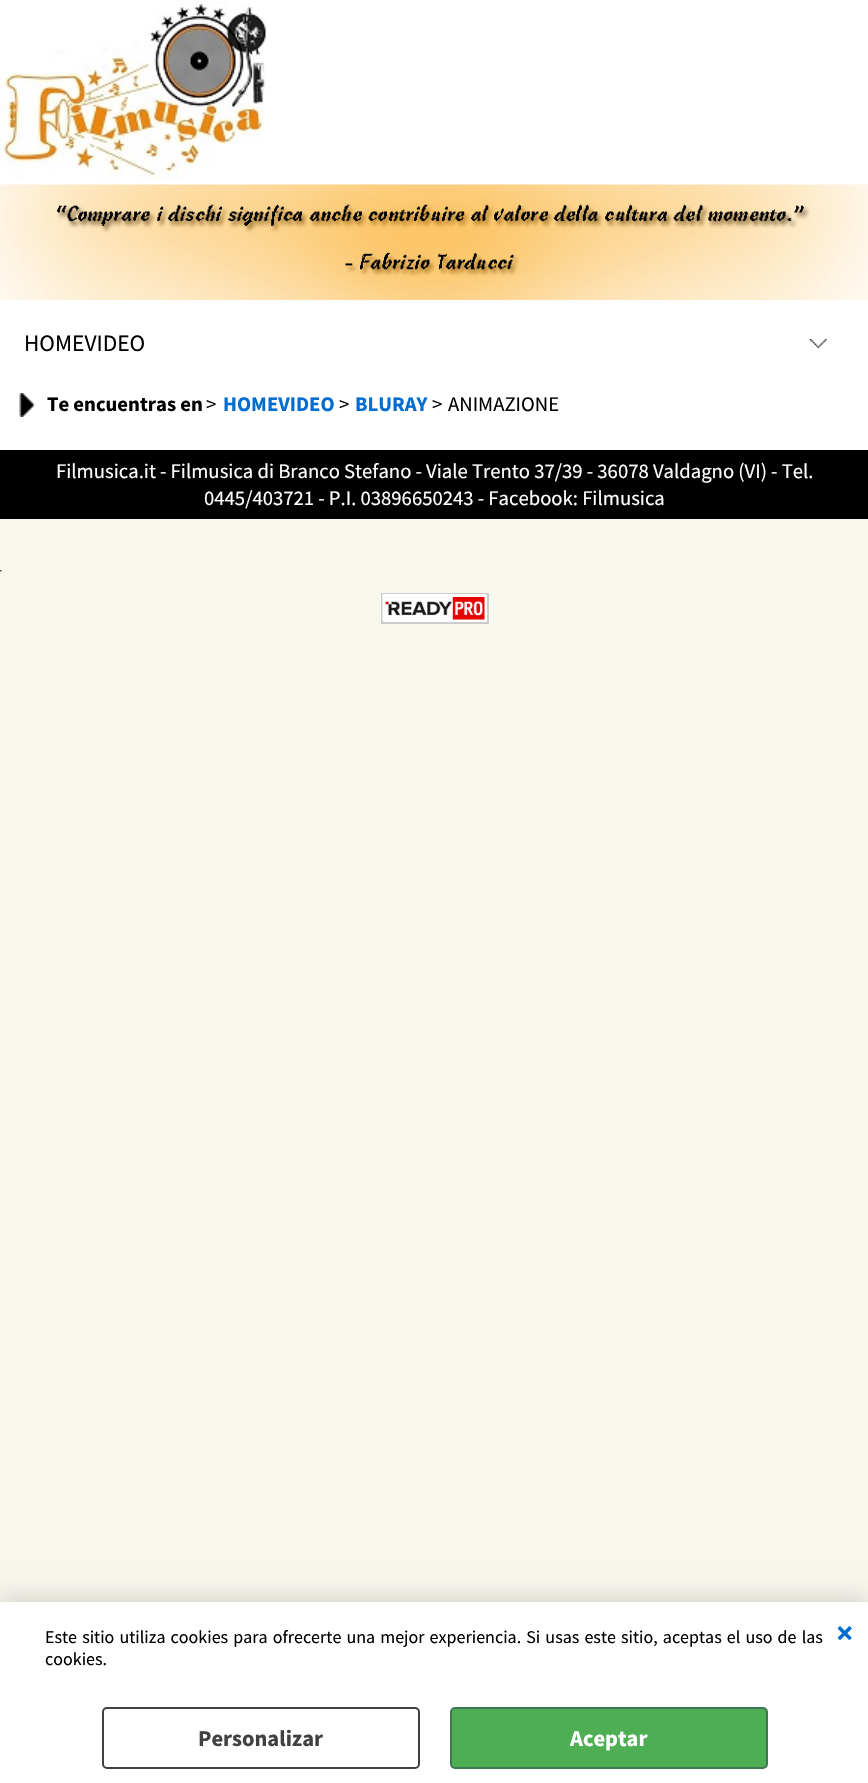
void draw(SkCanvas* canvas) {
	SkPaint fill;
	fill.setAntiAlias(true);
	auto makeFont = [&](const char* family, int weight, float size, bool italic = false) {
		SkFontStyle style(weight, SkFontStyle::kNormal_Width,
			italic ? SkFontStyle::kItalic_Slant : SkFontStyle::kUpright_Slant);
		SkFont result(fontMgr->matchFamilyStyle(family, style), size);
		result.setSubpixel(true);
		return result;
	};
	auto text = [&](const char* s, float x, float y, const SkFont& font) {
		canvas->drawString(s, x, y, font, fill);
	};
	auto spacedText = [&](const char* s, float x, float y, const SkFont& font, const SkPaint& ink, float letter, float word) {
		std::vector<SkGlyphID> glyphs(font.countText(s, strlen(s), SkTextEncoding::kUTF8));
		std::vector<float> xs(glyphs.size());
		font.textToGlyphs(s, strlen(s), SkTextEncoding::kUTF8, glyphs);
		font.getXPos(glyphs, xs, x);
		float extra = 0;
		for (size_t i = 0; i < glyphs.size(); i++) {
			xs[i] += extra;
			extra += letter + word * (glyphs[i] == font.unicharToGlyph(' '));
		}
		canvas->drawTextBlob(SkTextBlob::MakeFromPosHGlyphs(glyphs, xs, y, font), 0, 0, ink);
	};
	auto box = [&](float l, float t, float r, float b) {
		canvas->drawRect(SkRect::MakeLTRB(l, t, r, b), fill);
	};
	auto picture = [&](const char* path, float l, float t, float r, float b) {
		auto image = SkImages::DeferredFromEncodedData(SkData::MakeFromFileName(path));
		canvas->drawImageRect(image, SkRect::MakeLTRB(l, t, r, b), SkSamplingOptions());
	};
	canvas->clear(0xFFF7F7EE);
	fill.setColor(0xFFFFFFFF);
	box(0, 0, 868, 450);
	picture("image0.png", 0, 0, 266, 179);
	picture("image1.png", 0, 184, 868, 300);
	picture("image2.png", 810, 339, 827, 348);
	picture("image3.png", 19, 393, 35, 417);
	fill.setColor(0xFF000000);
	box(0, 450, 868, 519);
	picture("image4.png", 0, 570, 2, 572);
	fill.setColor(0xFFFFFFFF);
	canvas->drawRect(SkRect::MakeLTRB(382, 594, 488, 623), fill);
	fill.setStyle(SkPaint::kStroke_Style);
	fill.setStrokeWidth(2);
	fill.setColor(0xFFCCCCCC);
	canvas->drawRect(SkRect::MakeLTRB(382, 594, 488, 623), fill);
	picture("image5.png", 382, 594, 486, 621);
	fill.setStyle(SkPaint::kFill_Style);
	fill.setColor(0x33000000);
	fill.setMaskFilter(SkMaskFilter::MakeBlur(kNormal_SkBlurStyle, 13.5f));
	canvas->drawRect(SkRect::MakeLTRB(0, 1602, 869, 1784), fill);
	fill.setMaskFilter(nullptr);
	fill.setColor(0xFFFFFFFF);
	box(0, 1602, 868, 1783);
	fill.setStyle(SkPaint::kStroke_Style);
	fill.setColor(0xFF424141);
	canvas->drawRoundRect(SkRect::MakeLTRB(103, 1708, 419, 1768), 4, 4, fill);
	fill.setStyle(SkPaint::kFill_Style);
	fill.setColor(0xFF4EAE54);
	canvas->drawRoundRect(SkRect::MakeLTRB(451, 1708, 767, 1768), 4, 4, fill);
	fill.setStyle(SkPaint::kStroke_Style);
	fill.setColor(0xFF3F7755);
	canvas->drawRoundRect(SkRect::MakeLTRB(451, 1708, 767, 1768), 4, 4, fill);
	auto font1 = makeFont("Source Sans Pro", 400, 23.5f);
	fill.setStyle(SkPaint::kFill_Style);
	fill.setColor(0xFF000000);
	text("HOMEVIDEO", 24, 351, font1);
	auto font2 = makeFont("Source Sans Pro", 700, 20.7f);
	text("Te encuentras en", 47, 411, font2);
	auto font3 = makeFont("Source Sans Pro", 400, 20.7f);
	text(">", 206, 411, font3);
	fill.setColor(0xFF026CCF);
	text("HOMEVIDEO", 223, 411, font2);
	fill.setColor(0xFF000000);
	text(">", 339, 411, font3);
	fill.setColor(0xFF026CCF);
	text("BLURAY", 355, 411, font2);
	fill.setColor(0xFF000000);
	text(">", 432, 411, font3);
	text("ANIMAZIONE", 448, 411, font3);
	fill.setColor(0xFFFFFFFF);
	text("Filmusica.it - Filmusica di Branco Stefano - Viale Trento 37/39 - 36078 Valdagno (VI) - Tel.", 56, 478, font3);
	text("0445/403721 - P.I. 03896650243 - Facebook: Filmusica", 204, 505, font3);
	auto font4 = makeFont("Source Sans Pro", 400, 18);
	fill.setColor(0xFF000000);
	spacedText("Este sitio utiliza cookies para ofrecerte una mejor experiencia. Si usas este sitio, aceptas el uso de las", 45, 1643, font4, fill, 0, 1.5f);
	text("cookies.", 45, 1665, font4);
	auto font5 = makeFont("Source Sans Pro", 700, 33);
	fill.setColor(0xFF026CCF);
	text("×", 836, 1644, font5);
	auto font6 = makeFont("Source Sans Pro", 700, 22.5f);
	fill.setColor(0xFF424141);
	text("Personalizar", 198, 1746, font6);
	fill.setColor(0xFFFFFFFF);
	text("Aceptar", 570, 1746, font6);
}
